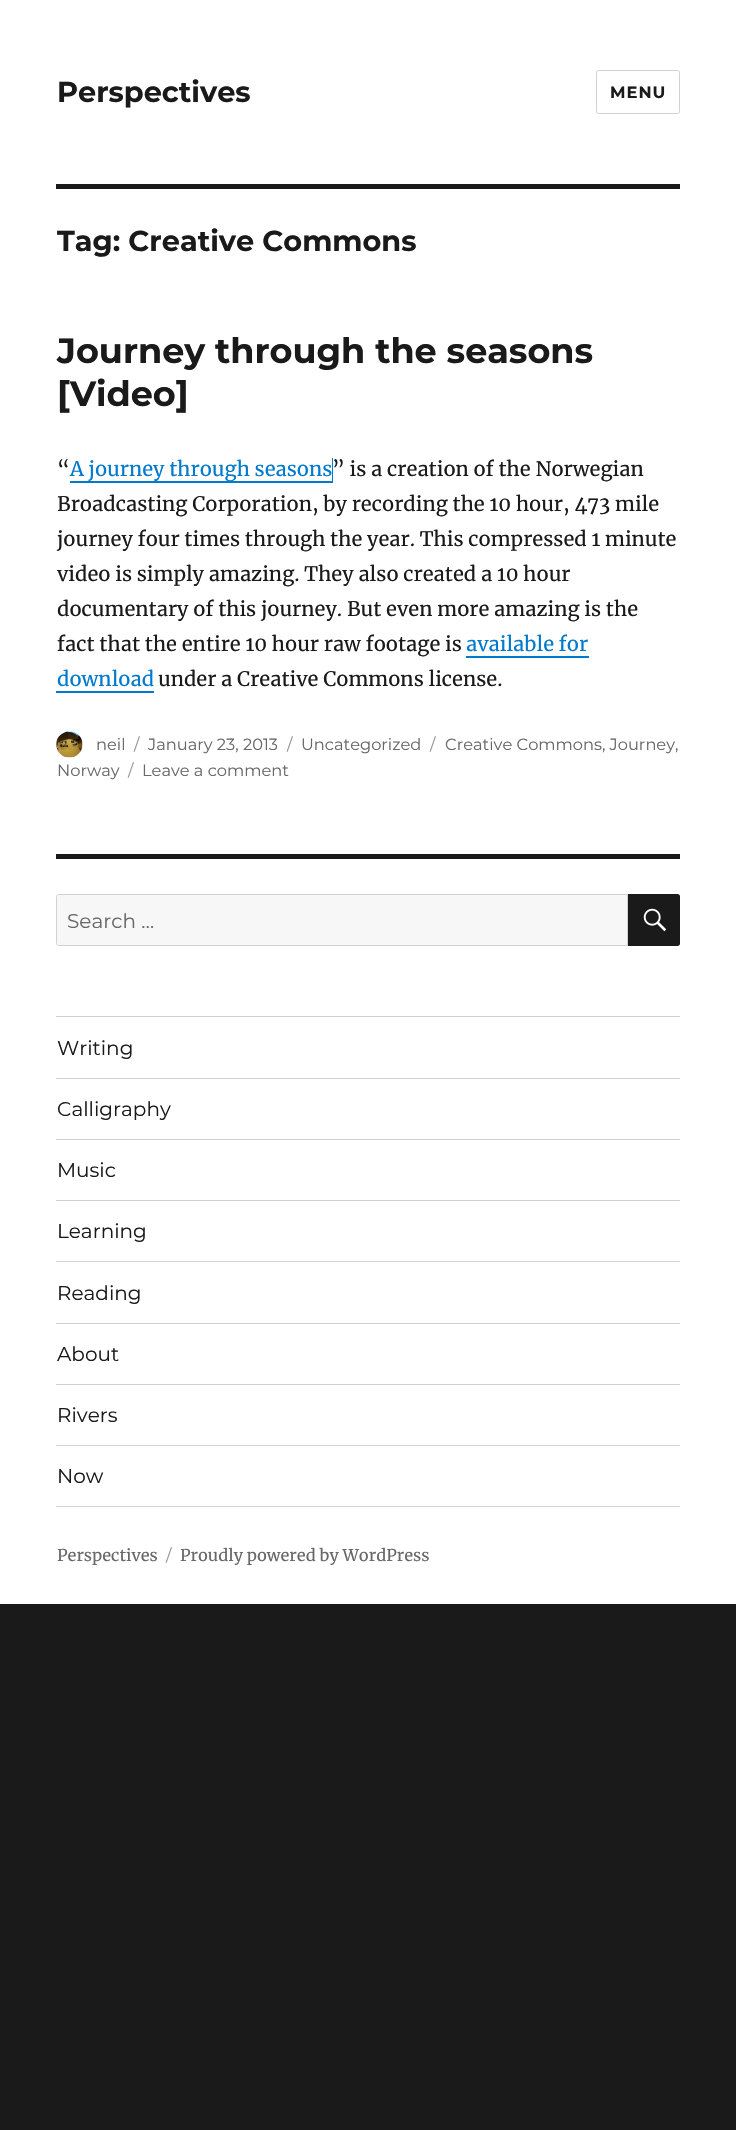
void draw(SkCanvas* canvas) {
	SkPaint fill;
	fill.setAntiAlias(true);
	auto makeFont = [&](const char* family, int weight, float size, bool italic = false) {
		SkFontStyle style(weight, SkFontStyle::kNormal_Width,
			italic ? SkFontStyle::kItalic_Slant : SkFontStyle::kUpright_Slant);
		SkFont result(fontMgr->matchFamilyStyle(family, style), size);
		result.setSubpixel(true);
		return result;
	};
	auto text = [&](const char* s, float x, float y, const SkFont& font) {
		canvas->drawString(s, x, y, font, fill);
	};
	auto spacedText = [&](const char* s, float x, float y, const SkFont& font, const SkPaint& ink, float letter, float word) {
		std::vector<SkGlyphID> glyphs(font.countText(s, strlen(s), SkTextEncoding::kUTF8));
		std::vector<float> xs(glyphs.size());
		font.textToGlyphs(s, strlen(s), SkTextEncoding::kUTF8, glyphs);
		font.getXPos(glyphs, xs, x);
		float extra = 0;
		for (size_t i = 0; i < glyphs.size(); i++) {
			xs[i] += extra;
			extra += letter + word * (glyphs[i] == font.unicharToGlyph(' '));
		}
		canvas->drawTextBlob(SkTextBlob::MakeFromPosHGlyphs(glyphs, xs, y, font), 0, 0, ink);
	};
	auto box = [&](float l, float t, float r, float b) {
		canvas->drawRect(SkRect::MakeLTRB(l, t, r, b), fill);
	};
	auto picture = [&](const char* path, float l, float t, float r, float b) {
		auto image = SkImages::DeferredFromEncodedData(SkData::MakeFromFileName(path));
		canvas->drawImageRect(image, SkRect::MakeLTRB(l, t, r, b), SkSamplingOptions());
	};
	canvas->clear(0xFF1A1A1A);
	fill.setColor(0xFFFFFFFF);
	box(0, 0, 736, 1604);
	fill.setStyle(SkPaint::kStroke_Style);
	fill.setStrokeWidth(1);
	fill.setColor(0xFFD1D1D1);
	canvas->drawRoundRect(SkRect::MakeLTRB(596.5f, 70.5f, 679.5f, 113.5f), 2, 2, fill);
	fill.setStyle(SkPaint::kFill_Style);
	fill.setColor(0xFF1A1A1A);
	box(56, 184, 680, 189);
	fill.setColor(0xFF007ACC);
	canvas->drawPath(SkPathBuilder().moveTo(70, 481).lineTo(70, 483).lineTo(333, 483).lineTo(333, 458).lineTo(332, 458).lineTo(332, 481).close().detach(), fill);
	canvas->drawPath(SkPathBuilder().moveTo(466, 633).lineTo(466, 658).lineTo(589, 658).lineTo(589, 633).lineTo(589, 656).lineTo(466, 656).close().detach(), fill);
	canvas->drawPath(SkPathBuilder().moveTo(56, 668).lineTo(56, 693).lineTo(154, 693).lineTo(154, 668).lineTo(154, 691).lineTo(56, 691).close().detach(), fill);
	picture("image0.png", 56, 731, 83, 758);
	fill.setColor(0xFF1A1A1A);
	box(56, 854, 680, 859);
	fill.setColor(0xFFF7F7F7);
	canvas->drawPath(SkPathBuilder().moveTo(58.5f, 894.5f).lineTo(627.5f, 894.5f).lineTo(627.5f, 945.5f).lineTo(58.5f, 945.5f).cubicTo(57.5f, 945.5f, 56.5f, 944.5f, 56.5f, 943.5f).lineTo(56.5f, 896.5f).cubicTo(56.5f, 895.5f, 57.5f, 894.5f, 58.5f, 894.5f).close().detach(), fill);
	fill.setStyle(SkPaint::kStroke_Style);
	fill.setColor(0xFFD1D1D1);
	canvas->drawPath(SkPathBuilder().moveTo(58.5f, 894.5f).lineTo(627.5f, 894.5f).lineTo(627.5f, 945.5f).lineTo(58.5f, 945.5f).cubicTo(57.5f, 945.5f, 56.5f, 944.5f, 56.5f, 943.5f).lineTo(56.5f, 896.5f).cubicTo(56.5f, 895.5f, 57.5f, 894.5f, 58.5f, 894.5f).close().detach(), fill);
	fill.setStyle(SkPaint::kFill_Style);
	fill.setColor(0xFF1A1A1A);
	canvas->drawPath(SkPathBuilder().moveTo(628, 894).lineTo(677.5f, 894).cubicTo(679, 894, 680, 895, 680, 896.5f).lineTo(680, 943.5f).cubicTo(680, 945, 679, 946, 677.5f, 946).lineTo(628, 946).close().detach(), fill);
	picture("image1.png", 643, 908, 667, 932);
	fill.setColor(0xFFD1D1D1);
	box(56, 1506, 680, 1507);
	box(56, 1016, 680, 1017);
	box(56, 1078, 680, 1079);
	box(56, 1139, 680, 1140);
	box(56, 1200, 680, 1201);
	box(56, 1261, 680, 1262);
	box(56, 1323, 680, 1324);
	box(56, 1384, 680, 1385);
	box(56, 1445, 680, 1446);
	auto font1 = makeFont("Montserrat", 100, 28.75f);
	fill.setColor(0xFF1A1A1A);
	text("Perspectives", 57, 102, font1);
	auto font2 = makeFont("Montserrat", 100, 16.25f);
	spacedText("MENU", 610, 98, font2, fill, 1, 0);
	text("Tag: Creative Commons", 57, 251, font1);
	auto font3 = makeFont("Montserrat", 100, 35);
	text("Journey through the seasons", 57, 363, font3);
	text("[Video]", 57, 406, font3);
	auto font4 = makeFont("Merriweather", 400, 20);
	text("“", 57, 476, font4);
	fill.setColor(0xFF007ACC);
	text("A journey through seasons", 70, 476, font4);
	fill.setColor(0xFF1A1A1A);
	text("” is a creation of the Norwegian", 332, 476, font4);
	text("Broadcasting Corporation, by recording the 10 hour, 473 mile", 57, 511, font4);
	text("journey four times through the year. This compressed 1 minute", 57, 546, font4);
	text("video is simply amazing. They also created a 10 hour", 57, 581, font4);
	text("documentary of this journey. But even more amazing is the", 57, 616, font4);
	text("fact that the entire 10 hour raw footage is", 57, 651, font4);
	fill.setColor(0xFF007ACC);
	text("available for", 466, 651, font4);
	text("download", 57, 686, font4);
	fill.setColor(0xFF1A1A1A);
	text("under a Creative Commons license.", 158, 686, font4);
	auto font5 = makeFont("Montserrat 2", 100, 16.25f);
	fill.setColor(0xFF686868);
	text("neil", 96, 750, font5);
	fill.setColor(0xFF959595);
	text("/", 134, 750, font5);
	fill.setColor(0xFF686868);
	text("January 23, 2013", 148, 750, font5);
	fill.setColor(0xFF959595);
	text("/", 287, 750, font5);
	fill.setColor(0xFF686868);
	text("Uncategorized", 301, 750, font5);
	fill.setColor(0xFF959595);
	text("/", 430, 750, font5);
	fill.setColor(0xFF686868);
	text("Creative Commons, Journey,", 445, 750, font5);
	text("Norway", 57, 776, font5);
	fill.setColor(0xFF959595);
	text("/", 128, 776, font5);
	fill.setColor(0xFF686868);
	text("Leave a comment", 142, 776, font5);
	auto font6 = makeFont("Montserrat 2", 100, 20);
	text("Search …", 67, 928, font6);
	fill.setColor(0xFF1A1A1A);
	text("Writing", 57, 1055, font6);
	text("Calligraphy", 57, 1116, font6);
	text("Music", 57, 1177, font6);
	text("Learning", 57, 1238, font6);
	text("Reading", 57, 1300, font6);
	text("About", 57, 1361, font6);
	text("Rivers", 57, 1422, font6);
	text("Now", 57, 1483, font6);
	auto font7 = makeFont("Merriweather", 400, 16.25f);
	fill.setColor(0xFF686868);
	text("Perspectives", 57, 1561, font7);
	fill.setColor(0xFF959595);
	text("/", 166, 1561, font5);
	fill.setColor(0xFF686868);
	text("Proudly powered by WordPress", 180, 1561, font7);
}
